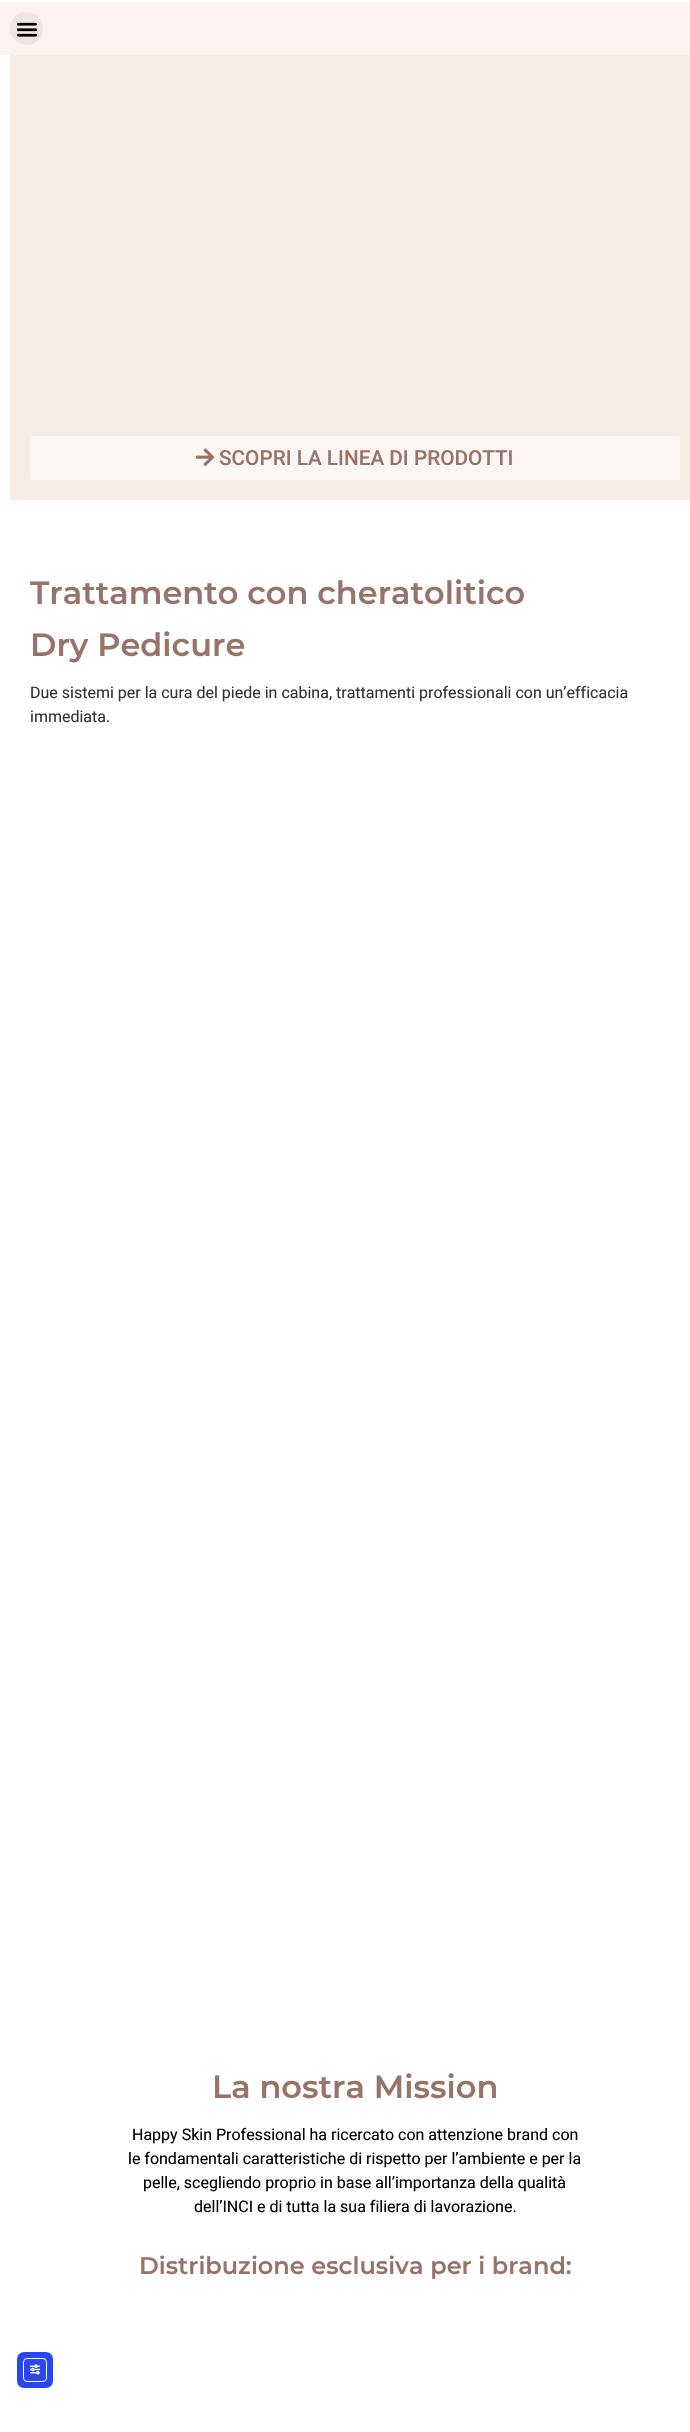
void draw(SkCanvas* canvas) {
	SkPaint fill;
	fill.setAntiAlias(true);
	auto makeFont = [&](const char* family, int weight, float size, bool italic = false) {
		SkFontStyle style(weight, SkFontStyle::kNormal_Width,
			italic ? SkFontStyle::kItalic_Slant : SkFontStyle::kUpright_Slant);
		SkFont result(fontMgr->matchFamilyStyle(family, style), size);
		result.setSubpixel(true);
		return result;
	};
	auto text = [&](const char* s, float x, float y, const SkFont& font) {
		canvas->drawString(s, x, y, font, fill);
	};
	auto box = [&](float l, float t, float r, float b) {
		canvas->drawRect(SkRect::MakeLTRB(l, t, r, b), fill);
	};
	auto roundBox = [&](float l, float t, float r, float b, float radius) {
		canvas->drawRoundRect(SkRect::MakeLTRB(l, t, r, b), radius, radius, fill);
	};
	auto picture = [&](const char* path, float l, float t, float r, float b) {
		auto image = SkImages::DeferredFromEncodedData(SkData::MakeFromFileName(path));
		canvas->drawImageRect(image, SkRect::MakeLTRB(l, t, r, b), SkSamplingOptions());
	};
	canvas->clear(0xFFFFFFFF);
	fill.setColor(0xFFFCF2F0);
	box(0, 2, 690, 55);
	fill.setColor(0xFFEFE6E4);
	canvas->drawCircle(26.5f, 28.5f, 16.5f, fill);
	picture("image0.png", 16, 22, 38, 37);
	fill.setColor(0xFFF7EDE6);
	box(10, 55, 690, 500);
	fill.setColor(0xFFFBF5F4);
	roundBox(30, 436, 680, 480, 3);
	picture("image1.png", 196, 448, 215, 466);
	fill.setColor(0xFF2847F3);
	roundBox(17, 2352, 53, 2388, 7);
	fill.setStyle(SkPaint::kStroke_Style);
	fill.setStrokeWidth(1);
	fill.setColor(0xFFFFFFFF);
	canvas->drawRoundRect(SkRect::MakeLTRB(23.5f, 2358.5f, 46.5f, 2381.5f), 3.5f, 3.5f, fill);
	picture("image2.png", 30, 2364, 41, 2375);
	auto font1 = makeFont("Roboto", 500, 20.75f);
	fill.setStyle(SkPaint::kFill_Style);
	fill.setColor(0xFF987369);
	text("SCOPRI LA LINEA DI PRODOTTI", 219, 465, font1);
	auto font2 = makeFont("Montserrat", 600, 32);
	text("Trattamento con cheratolitico", 30, 604, font2);
	text("Dry Pedicure", 30, 656, font2);
	auto font3 = makeFont("Roboto", 400, 16);
	fill.setColor(0xFF333333);
	text("Due sistemi per la cura del piede in cabina, trattamenti professionali con un’efficacia", 30, 698, font3);
	text("immediata.", 30, 722, font3);
	fill.setColor(0xFF987369);
	text("La nostra Mission", 212, 2098, font2);
	fill.setColor(0xFF000000);
	text("Happy Skin Professional ha ricercato con attenzione brand con", 132, 2140, font3);
	text("le fondamentali caratteristiche di rispetto per l’ambiente e per la", 128, 2164, font3);
	text("pelle, scegliendo proprio in base all’importanza della qualità", 143, 2188, font3);
	text("dell’INCI e di tutta la sua filiera di lavorazione.", 194, 2212, font3);
	auto font4 = makeFont("Montserrat", 600, 24);
	fill.setColor(0xFF987369);
	text("Distribuzione esclusiva per i brand:", 139, 2274, font4);
}
